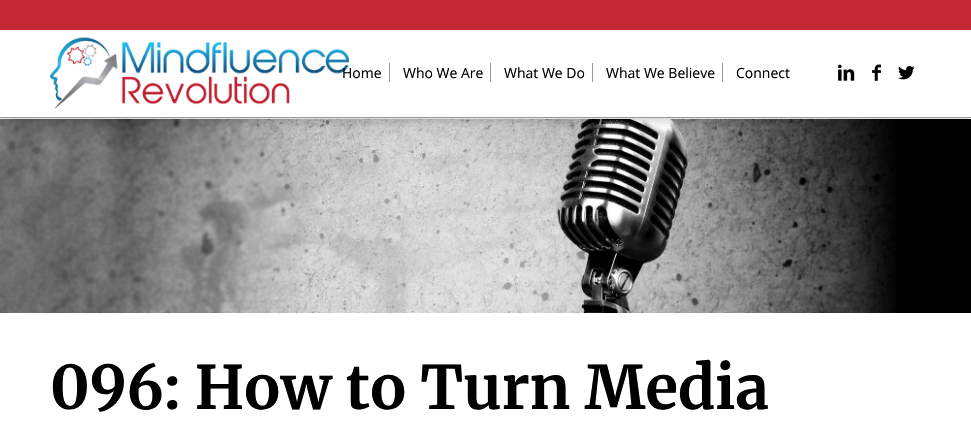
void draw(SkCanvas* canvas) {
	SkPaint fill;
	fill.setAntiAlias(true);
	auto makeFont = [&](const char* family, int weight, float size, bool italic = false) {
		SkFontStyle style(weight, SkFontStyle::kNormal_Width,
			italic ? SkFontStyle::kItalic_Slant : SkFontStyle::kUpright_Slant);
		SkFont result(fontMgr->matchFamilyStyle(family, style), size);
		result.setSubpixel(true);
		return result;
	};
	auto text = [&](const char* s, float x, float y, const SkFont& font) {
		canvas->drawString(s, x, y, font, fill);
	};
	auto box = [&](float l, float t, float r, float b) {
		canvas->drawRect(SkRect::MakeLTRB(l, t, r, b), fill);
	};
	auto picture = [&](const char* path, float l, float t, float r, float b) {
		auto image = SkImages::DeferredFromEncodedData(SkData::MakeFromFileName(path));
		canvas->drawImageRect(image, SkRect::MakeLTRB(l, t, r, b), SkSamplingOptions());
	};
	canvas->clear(0xFFFFFFFF);
	picture("image4.png", 0, 119, 971, 313);
	canvas->save();
	canvas->clipRect(SkRect::MakeLTRB(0, 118, 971, 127));
	fill.setColor(0x2E000000);
	fill.setMaskFilter(SkMaskFilter::MakeBlur(kNormal_SkBlurStyle, 5));
	canvas->drawRect(SkRect::MakeLTRB(0, 3, 971, 121), fill);
	fill.setMaskFilter(nullptr);
	canvas->restore();
	fill.setColor(0xFFC32837);
	box(0, 0, 971, 30);
	fill.setColor(0xFF999999);
	box(0, 117, 971, 118);
	picture("image0.png", 50, 37, 349, 109);
	box(389, 63, 390, 82);
	box(490, 63, 491, 82);
	box(592, 63, 593, 82);
	box(722, 63, 723, 82);
	picture("image1.png", 838, 64, 855, 81);
	picture("image2.png", 872, 64, 881, 81);
	picture("image3.png", 898, 66, 915, 80);
	auto font1 = makeFont("Open Sans", 400, 14);
	fill.setColor(0xFF000000);
	text("Home", 342, 78, font1);
	text("Who We Are", 403, 78, font1);
	text("What We Do", 504, 78, font1);
	text("What We Believe", 606, 78, font1);
	text("Connect", 736, 78, font1);
	auto font2 = makeFont("Merriweather", 700, 60);
	text("096: How to Turn Media", 50, 409, font2);
}
